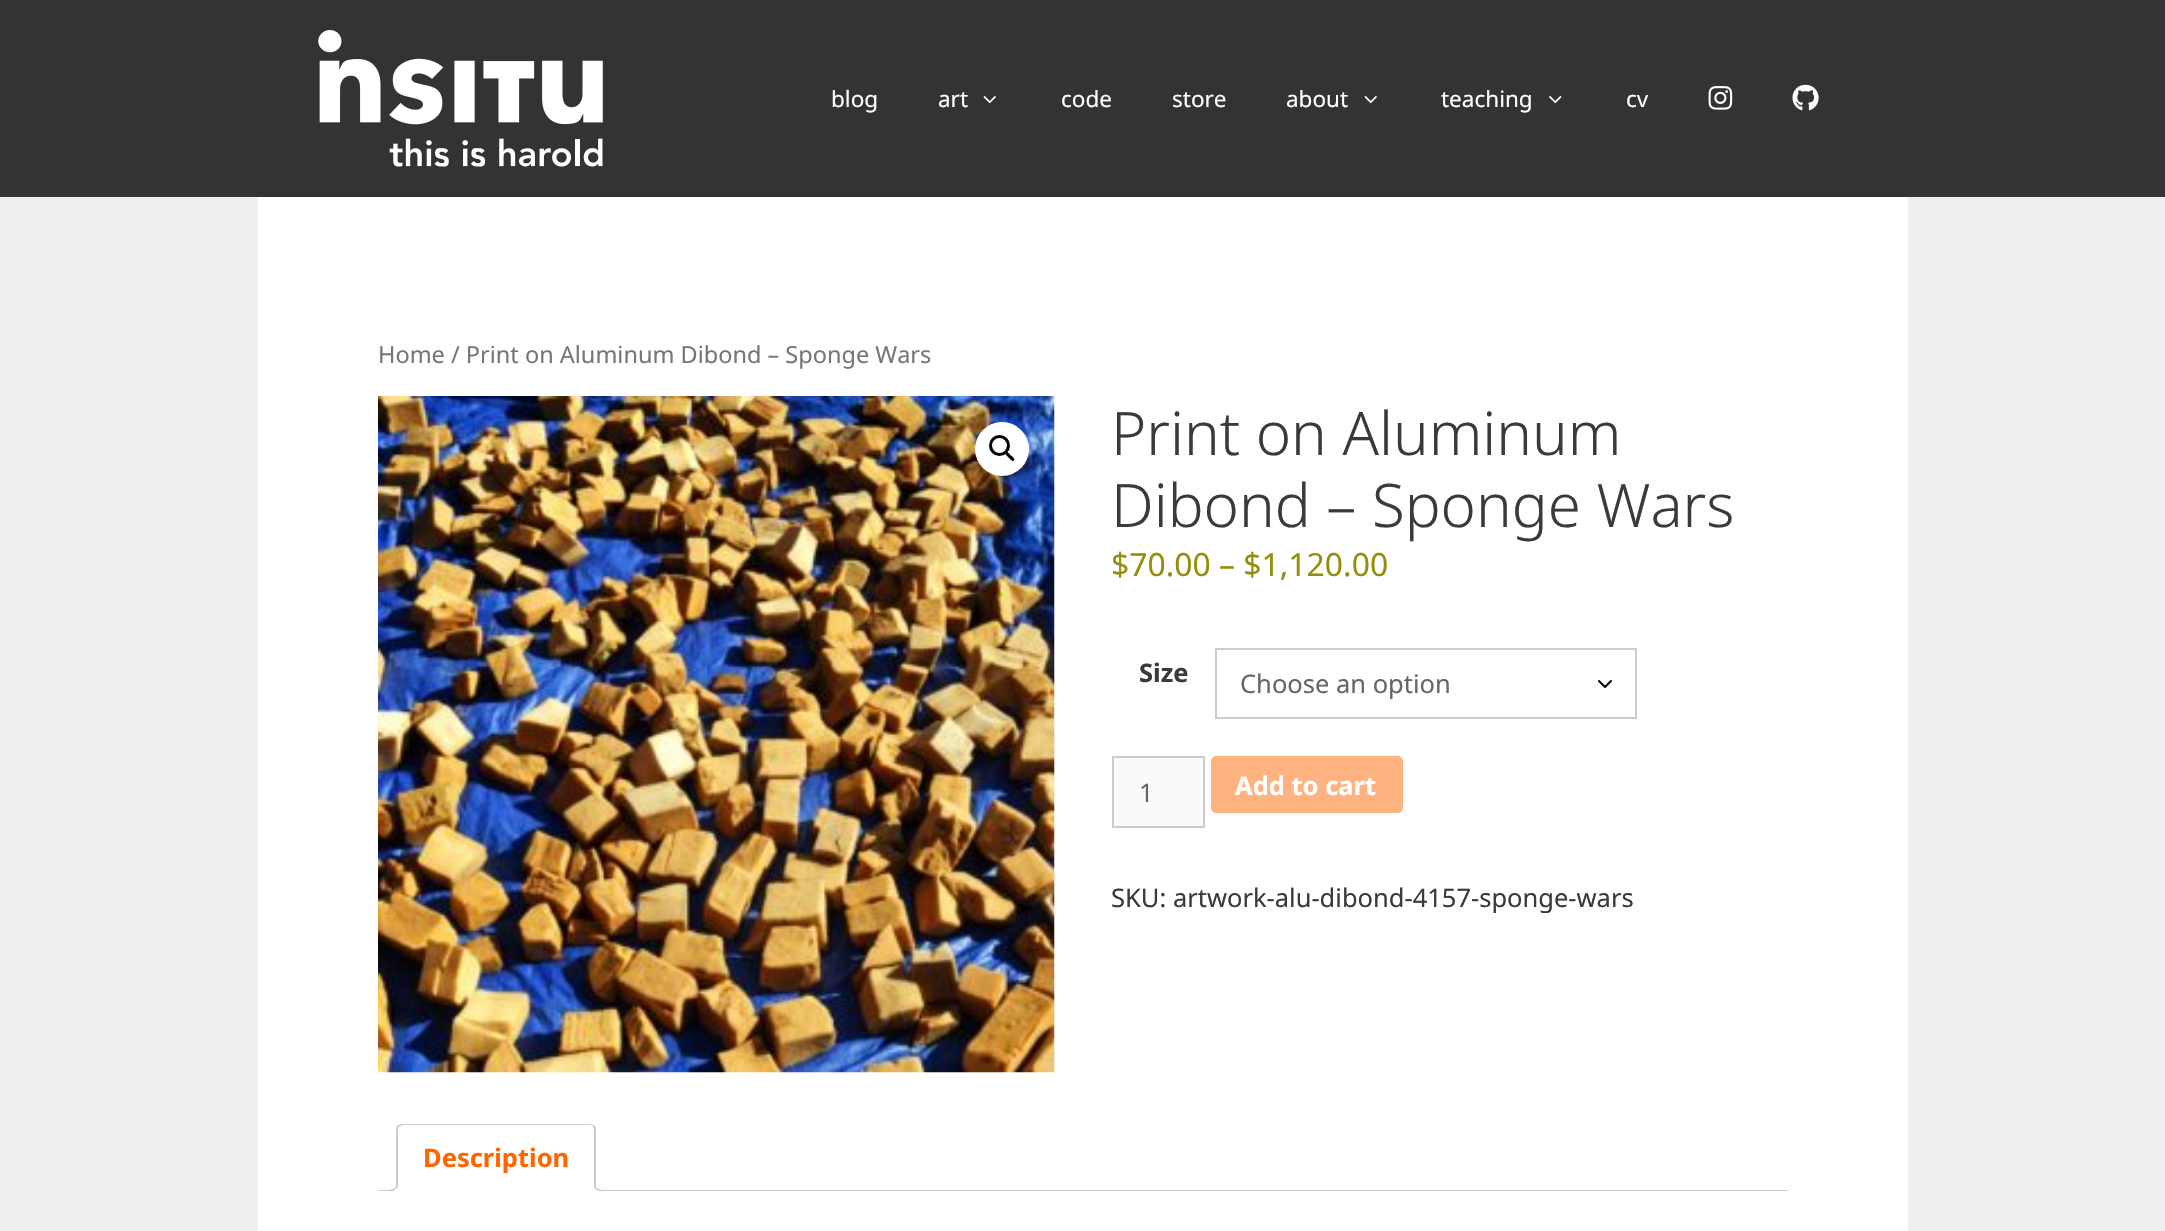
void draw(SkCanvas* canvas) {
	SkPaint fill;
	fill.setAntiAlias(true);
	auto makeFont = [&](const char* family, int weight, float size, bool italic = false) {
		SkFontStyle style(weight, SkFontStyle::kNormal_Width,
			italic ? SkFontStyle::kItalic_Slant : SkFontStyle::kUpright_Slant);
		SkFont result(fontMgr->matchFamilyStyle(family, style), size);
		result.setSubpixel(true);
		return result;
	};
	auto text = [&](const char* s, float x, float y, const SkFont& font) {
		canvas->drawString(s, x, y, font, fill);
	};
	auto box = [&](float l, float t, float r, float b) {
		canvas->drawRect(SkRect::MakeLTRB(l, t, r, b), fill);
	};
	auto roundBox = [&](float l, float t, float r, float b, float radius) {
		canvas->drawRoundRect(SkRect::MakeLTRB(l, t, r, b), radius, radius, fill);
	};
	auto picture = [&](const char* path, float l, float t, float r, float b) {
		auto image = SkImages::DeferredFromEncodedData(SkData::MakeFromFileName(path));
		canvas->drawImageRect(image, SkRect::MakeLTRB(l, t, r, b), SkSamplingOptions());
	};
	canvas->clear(0xFFEFEFEF);
	fill.setColor(0xFF333333);
	box(0, 0, 2165, 197);
	picture("image0.png", 318, 30, 603, 167);
	picture("image1.png", 983, 96, 996, 104);
	picture("image1.png", 1364, 96, 1377, 104);
	picture("image2.png", 1549, 96, 1562, 104);
	picture("image3.png", 1708, 86, 1733, 110);
	picture("image4.png", 1792, 84, 1819, 111);
	fill.setColor(0xFFFFFFFF);
	box(258, 197, 1908, 1231);
	picture("image5.png", 378, 396, 1055, 1073);
	canvas->drawCircle(1002, 449, 27, fill);
	fill.setStyle(SkPaint::kStroke_Style);
	fill.setStrokeWidth(3);
	fill.setColor(0xFF000000);
	canvas->drawCircle(999.5f, 445.5f, 9, fill);
	fill.setStyle(SkPaint::kFill_Style);
	canvas->drawPath(SkPathBuilder().moveTo(1005.5f, 452).cubicTo(1007, 450.5f, 1010, 454.5f, 1011, 455.5f).cubicTo(1012, 456, 1015.5f, 459, 1014, 460.5f).cubicTo(1012.5f, 462.5f, 1009.5f, 458.5f, 1008.5f, 457.5f).cubicTo(1008, 456.5f, 1004, 454, 1005.5f, 452).close().detach(), fill);
	fill.setStyle(SkPaint::kStroke_Style);
	fill.setStrokeWidth(2);
	fill.setStrokeCap(SkPaint::kRound_Cap);
	fill.setStrokeJoin(SkPaint::kRound_Join);
	canvas->drawPath(SkPathBuilder().moveTo(1599, 681).lineTo(1605, 687).lineTo(1611, 681).detach(), fill);
	fill.setStrokeCap(SkPaint::kButt_Cap);
	fill.setStrokeJoin(SkPaint::kMiter_Join);
	fill.setColor(0xFFCCCCCC);
	canvas->drawRect(SkRect::MakeLTRB(1216, 649, 1636, 718), fill);
	fill.setStyle(SkPaint::kFill_Style);
	fill.setColor(0xFFFAFAFA);
	canvas->drawRect(SkRect::MakeLTRB(1113, 757, 1204, 827), fill);
	fill.setStyle(SkPaint::kStroke_Style);
	fill.setColor(0xFFCCCCCC);
	canvas->drawRect(SkRect::MakeLTRB(1113, 757, 1204, 827), fill);
	fill.setStyle(SkPaint::kFill_Style);
	fill.setColor(0xFFFFB380);
	roundBox(1211, 756, 1403, 813, 5);
	fill.setColor(0xFFCFC8D8);
	box(378, 1190, 1788, 1191);
	fill.setColor(0xFFFFFFFF);
	canvas->drawPath(SkPathBuilder().moveTo(402, 1124).lineTo(590, 1124).cubicTo(593.5f, 1124, 596, 1126.5f, 596, 1130).lineTo(596, 1191).lineTo(396, 1191).lineTo(396, 1130).cubicTo(396, 1126.5f, 398.5f, 1124, 402, 1124).close().detach(), fill);
	fill.setColor(0xFFCFC8D8);
	canvas->drawPath(SkPathBuilder().moveTo(402, 1124).cubicTo(401, 1124, 399, 1124, 398, 1125).lineTo(399, 1127).lineTo(402, 1125).lineTo(590, 1125).lineTo(593, 1126).lineTo(594, 1125).lineTo(590, 1124).close().detach(), fill);
	canvas->drawPath(SkPathBuilder().moveTo(594, 1125).lineTo(596, 1127).lineTo(596, 1191).lineTo(594, 1190).lineTo(594, 1130).cubicTo(594, 1128, 593, 1127, 593, 1126).close().detach(), fill);
	fill.setColor(0xFFFFFFFF);
	canvas->drawPath(SkPathBuilder().moveTo(596, 1191).lineTo(594, 1190).lineTo(398, 1190).lineTo(398, 1189).lineTo(396, 1191).close().detach(), fill);
	fill.setColor(0xFFCFC8D8);
	canvas->drawPath(SkPathBuilder().moveTo(396, 1191).lineTo(398, 1189).lineTo(398, 1130).cubicTo(398, 1129, 398, 1127, 399, 1127).lineTo(398, 1125).cubicTo(397, 1126, 396, 1128, 396, 1130).close().detach(), fill);
	canvas->save();
	canvas->clipRect(SkRect::MakeLTRB(378, 1124, 1788, 1191));
	fill.setColor(0xFFFFFFFF);
	canvas->drawPath(SkPathBuilder().moveTo(393, 1191).lineTo(393, 1194).cubicTo(398, 1194, 401, 1192.5f, 401, 1187).lineTo(397, 1187).cubicTo(396.5f, 1189, 395, 1190.5f, 393, 1191).close().detach(), fill);
	canvas->restore();
	fill.setColor(0xFFCFC8D8);
	canvas->drawPath(SkPathBuilder(SkPathFillType::kEvenOdd).moveTo(390, 1183.5f).lineTo(397.5f, 1183.5f).cubicTo(397.5f, 1189, 395.5f, 1191, 390, 1191).close().moveTo(390, 1183.5f).lineTo(396, 1183.5f).cubicTo(396, 1188, 394.5f, 1189.5f, 390, 1189.5f).close().detach(), fill);
	canvas->save();
	canvas->clipRect(SkRect::MakeLTRB(378, 1124, 1788, 1191));
	fill.setColor(0xFFFFFFFF);
	canvas->drawPath(SkPathBuilder().moveTo(591, 1187).cubicTo(591, 1192.5f, 594, 1194, 599, 1194).lineTo(599, 1191).cubicTo(597, 1190.5f, 595, 1189, 594.5f, 1187).close().detach(), fill);
	canvas->restore();
	fill.setColor(0xFFCFC8D8);
	canvas->drawPath(SkPathBuilder(SkPathFillType::kEvenOdd).moveTo(594, 1183.5f).lineTo(601.5f, 1183.5f).lineTo(601.5f, 1191).cubicTo(597.5f, 1191, 594, 1189.5f, 594, 1185).close().moveTo(595.5f, 1183.5f).lineTo(601.5f, 1183.5f).lineTo(601.5f, 1189.5f).cubicTo(598.5f, 1189.5f, 595.5f, 1188.5f, 595.5f, 1185).close().detach(), fill);
	auto font1 = makeFont("Noto Sans", 400, 22.5f);
	fill.setColor(0xFFFFFFFF);
	text("blog", 831, 107, font1);
	text("art", 938, 107, font1);
	text("code", 1061, 107, font1);
	text("store", 1172, 107, font1);
	text("about", 1286, 107, font1);
	text("teaching", 1441, 107, font1);
	text("cv", 1626, 107, font1);
	auto font2 = makeFont("Noto Sans", 400, 23.5f);
	fill.setColor(0xFF767676);
	text("Home / Print on Aluminum Dibond – Sponge Wars", 378, 363, font2);
	auto font3 = makeFont("Noto Sans", 300, 60);
	fill.setColor(0xFF3A3A3A);
	text("Print on Aluminum", 1111, 455, font3);
	text("Dibond – Sponge Wars", 1111, 527, font3);
	auto font4 = makeFont("Noto Sans", 400, 31.9f);
	fill.setColor(0xFF958E09);
	text("$70.00 – $1,120.00", 1111, 576, font4);
	auto font5 = makeFont("Noto Sans", 700, 25.5f);
	fill.setColor(0xFF3A3A3A);
	text("Size", 1139, 682, font5);
	auto font6 = makeFont("Noto Sans", 400, 25.5f);
	fill.setColor(0xFF666666);
	text("Choose an option", 1240, 693, font6);
	text("1", 1139, 802, font6);
	fill.setColor(0xFFFFFFFF);
	text("Add to cart", 1235, 795, font5);
	fill.setColor(0xFF3A3A3A);
	text("SKU: artwork-alu-dibond-4157-sponge-wars", 1111, 907, font6);
	fill.setColor(0xFFFF6600);
	text("Description", 423, 1167, font5);
}
